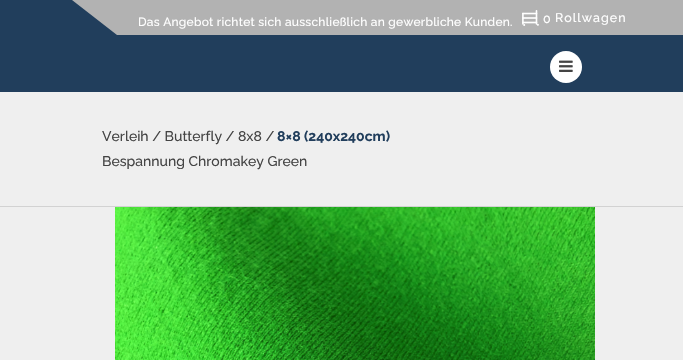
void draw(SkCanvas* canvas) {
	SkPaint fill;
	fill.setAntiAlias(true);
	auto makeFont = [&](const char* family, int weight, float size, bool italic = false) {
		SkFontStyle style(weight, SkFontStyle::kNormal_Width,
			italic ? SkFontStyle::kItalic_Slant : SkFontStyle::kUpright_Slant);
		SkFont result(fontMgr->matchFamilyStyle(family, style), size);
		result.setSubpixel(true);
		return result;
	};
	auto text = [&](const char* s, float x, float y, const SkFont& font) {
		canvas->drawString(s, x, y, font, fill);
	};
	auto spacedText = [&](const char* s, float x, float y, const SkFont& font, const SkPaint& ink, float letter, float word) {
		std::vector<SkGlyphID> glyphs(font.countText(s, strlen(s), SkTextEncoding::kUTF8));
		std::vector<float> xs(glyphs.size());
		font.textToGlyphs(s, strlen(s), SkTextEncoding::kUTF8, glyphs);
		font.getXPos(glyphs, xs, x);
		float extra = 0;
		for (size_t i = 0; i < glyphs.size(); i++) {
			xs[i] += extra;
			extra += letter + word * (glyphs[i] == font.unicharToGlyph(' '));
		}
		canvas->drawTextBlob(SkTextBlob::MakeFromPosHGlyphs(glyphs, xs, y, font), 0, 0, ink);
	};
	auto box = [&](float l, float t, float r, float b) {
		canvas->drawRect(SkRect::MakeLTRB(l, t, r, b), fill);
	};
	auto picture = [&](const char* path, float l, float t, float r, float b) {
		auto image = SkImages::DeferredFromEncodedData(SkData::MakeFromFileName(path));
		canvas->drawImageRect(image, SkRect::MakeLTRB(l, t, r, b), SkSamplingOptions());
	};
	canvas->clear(0xFFEFEFEF);
	fill.setColor(0xFF213E5C);
	box(0, 0, 683, 92);
	fill.setColor(0xFFB2B2B2);
	canvas->drawPath(SkPathBuilder().moveTo(72, 0).lineTo(117, 0).lineTo(117, 35).close().detach(), fill);
	box(117, 0, 683, 35);
	picture("image0.png", 522, 10, 539, 26);
	fill.setColor(0xFFFFFFFF);
	canvas->drawCircle(566, 67, 16, fill);
	picture("image1.png", 559, 60, 573, 72);
	fill.setColor(0xFFD2D2D2);
	box(0, 206, 683, 207);
	picture("image2.png", 115, 207, 595, 360);
	auto font1 = makeFont("Raleway", 500, 12);
	fill.setColor(0xFFFFFFFF);
	spacedText("Das Angebot richtet sich ausschließlich an gewerbliche Kunden.", 138, 26, font1, fill, 0.25f, 0);
	auto font2 = makeFont("Raleway", 500, 12.5f);
	spacedText("0", 543, 23, font2, fill, 1, 0);
	spacedText("Rollwagen", 555, 22, font2, fill, 1, 0);
	auto font3 = makeFont("Raleway", 500, 14);
	fill.setColor(0xFF444444);
	text("Verleih / Butterfly / 8x8 /", 102, 141, font3);
	auto font4 = makeFont("Raleway", 700, 14);
	fill.setColor(0xFF213E5C);
	text("8×8 (240x240cm)", 277, 141, font4);
	fill.setColor(0xFF444444);
	text("Bespannung Chromakey Green", 102, 166, font3);
}
